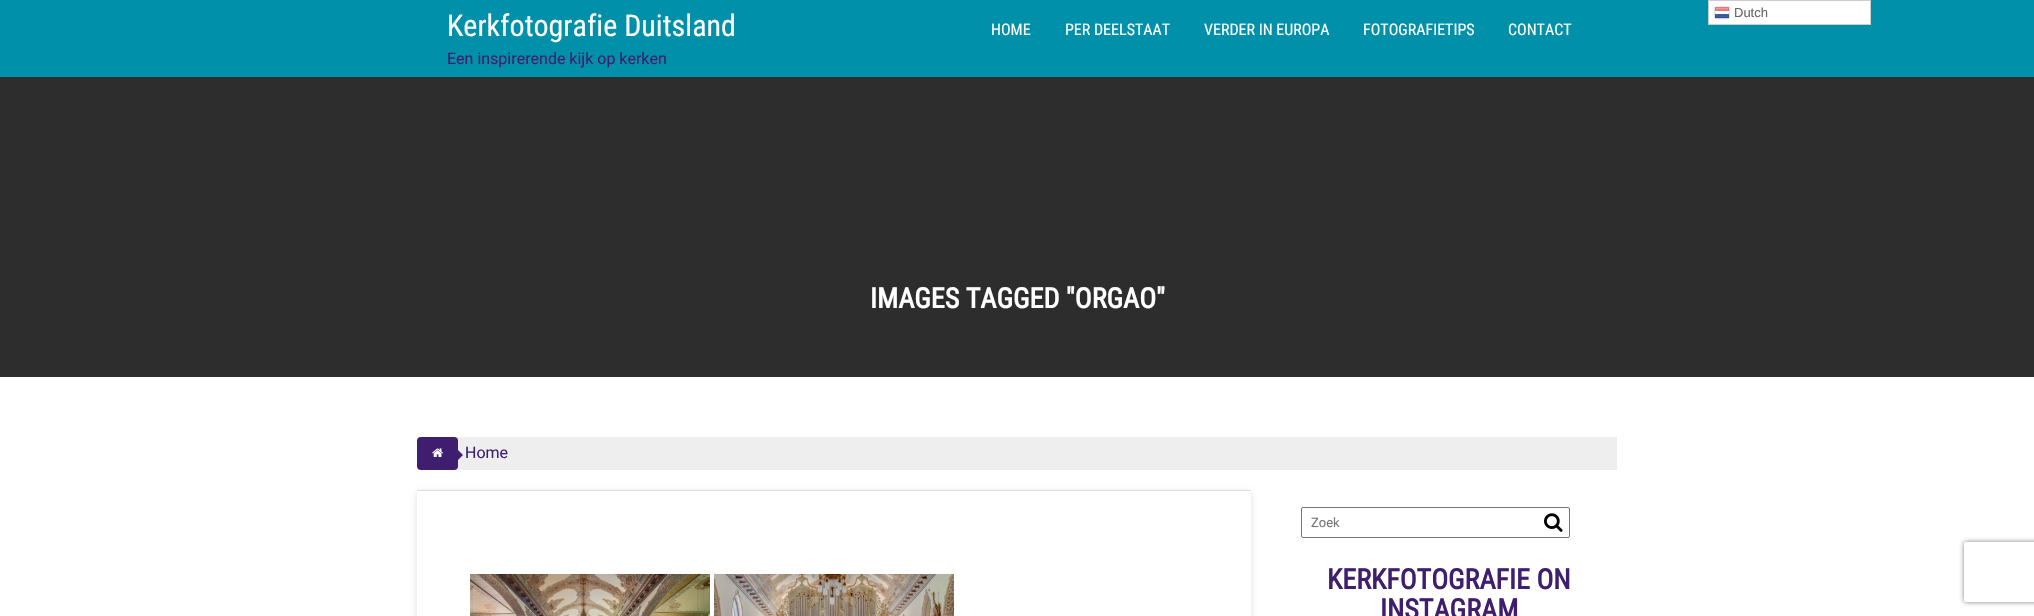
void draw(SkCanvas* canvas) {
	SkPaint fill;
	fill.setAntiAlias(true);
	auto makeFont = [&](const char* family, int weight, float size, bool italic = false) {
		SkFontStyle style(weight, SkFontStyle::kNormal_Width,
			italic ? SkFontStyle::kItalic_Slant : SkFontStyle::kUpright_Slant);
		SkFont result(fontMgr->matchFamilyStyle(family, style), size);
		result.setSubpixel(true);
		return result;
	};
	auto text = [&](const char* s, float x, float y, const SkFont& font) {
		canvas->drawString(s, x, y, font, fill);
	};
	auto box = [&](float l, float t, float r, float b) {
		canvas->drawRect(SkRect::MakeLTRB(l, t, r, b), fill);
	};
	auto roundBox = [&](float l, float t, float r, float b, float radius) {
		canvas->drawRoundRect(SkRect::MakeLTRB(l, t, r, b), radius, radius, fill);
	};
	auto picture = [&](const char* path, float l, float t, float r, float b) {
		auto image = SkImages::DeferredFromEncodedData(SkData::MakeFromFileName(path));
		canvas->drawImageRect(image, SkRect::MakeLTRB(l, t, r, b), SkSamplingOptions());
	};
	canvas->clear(0xFFFFFFFF);
	fill.setColor(0xFF0090A9);
	box(0, 0, 2034, 77);
	fill.setColor(0xFF2D2D2D);
	box(0, 77, 2034, 377);
	fill.setColor(0xFFEEEEEF);
	box(455, 437, 1617, 470);
	fill.setColor(0xFF3F1E6F);
	roundBox(417, 437, 458, 470, 4);
	picture("image0.png", 432, 448, 443, 457);
	canvas->drawPath(SkPathBuilder().moveTo(458, 460).lineTo(458, 450).lineTo(463, 455).close().detach(), fill);
	fill.setColor(0x21000000);
	fill.setMaskFilter(SkMaskFilter::MakeBlur(kNormal_SkBlurStyle, 3));
	canvas->drawRoundRect(SkRect::MakeLTRB(417, 492, 1251, 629), 4, 4, fill);
	fill.setMaskFilter(nullptr);
	fill.setColor(0xFFFFFFFF);
	roundBox(417, 490, 1251, 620, 4);
	fill.setColor(0xFFDDDDDD);
	box(417, 490, 1251, 491);
	picture("image1.png", 470, 574, 710, 616);
	picture("image2.png", 714, 574, 954, 616);
	fill.setStyle(SkPaint::kStroke_Style);
	fill.setStrokeWidth(1);
	fill.setColor(0xFF767676);
	canvas->drawRoundRect(SkRect::MakeLTRB(1301.5f, 507.5f, 1569.5f, 537.5f), 1.5f, 1.5f, fill);
	picture("image3.png", 1544, 513, 1563, 532);
	fill.setStyle(SkPaint::kFill_Style);
	fill.setColor(0xFFFFFFFF);
	canvas->drawRect(SkRect::MakeLTRB(1708.5f, 0.5f, 1870.5f, 24.5f), fill);
	fill.setStyle(SkPaint::kStroke_Style);
	fill.setColor(0xFFCCCCCC);
	canvas->drawRect(SkRect::MakeLTRB(1708.5f, 0.5f, 1870.5f, 24.5f), fill);
	picture("image4.png", 1714, 6, 1730, 20);
	canvas->save();
	canvas->clipPath(SkPathBuilder(SkPathFillType::kEvenOdd).moveTo(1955, 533).lineTo(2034, 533).lineTo(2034, 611).lineTo(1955, 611).close().moveTo(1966, 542).lineTo(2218, 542).cubicTo(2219, 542, 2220, 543, 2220, 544).lineTo(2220, 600).cubicTo(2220, 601, 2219, 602, 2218, 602).lineTo(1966, 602).cubicTo(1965, 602, 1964, 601, 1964, 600).lineTo(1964, 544).cubicTo(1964, 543, 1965, 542, 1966, 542).close().detach(), true);
	fill.setStyle(SkPaint::kFill_Style);
	fill.setColor(0xFF808080);
	fill.setMaskFilter(SkMaskFilter::MakeBlur(kNormal_SkBlurStyle, 2.5f));
	canvas->drawRoundRect(SkRect::MakeLTRB(1964, 542, 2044, 602), 2, 2, fill);
	fill.setMaskFilter(nullptr);
	canvas->restore();
	auto font1 = makeFont("Roboto Condensed", 400, 30);
	fill.setColor(0xFFFFFFFF);
	text("Kerkfotografie Duitsland", 447, 36, font1);
	auto font2 = makeFont("Roboto", 400, 16);
	fill.setColor(0xFF3F1E6F);
	text("Een inspirerende kijk op kerken", 447, 64, font2);
	auto font3 = makeFont("Roboto Condensed", 400, 16);
	fill.setColor(0xFFFFFFFF);
	text("HOME", 991, 35, font3);
	text("PER DEELSTAAT", 1065, 35, font3);
	text("VERDER IN EUROPA", 1204, 35, font3);
	text("FOTOGRAFIETIPS", 1363, 35, font3);
	text("CONTACT", 1508, 35, font3);
	auto font4 = makeFont("Roboto Condensed", 700, 28);
	text("IMAGES TAGGED \"ORGAO\"", 870, 308, font4);
	fill.setColor(0xFF3F1E6F);
	text("Home", 465, 458, font2);
	auto font5 = makeFont("Roboto", 400, 13);
	fill.setColor(0xFF757575);
	text("Zoek", 1311, 527, font5);
	fill.setColor(0xFF3F1E6F);
	text("KERKFOTOGRAFIE ON", 1327, 589, font4);
	text("INSTAGRAM", 1380, 619, font4);
	auto font6 = makeFont("Liberation Sans", 400, 13);
	fill.setColor(0xFF666666);
	text("Dutch", 1734, 17, font6);
}
